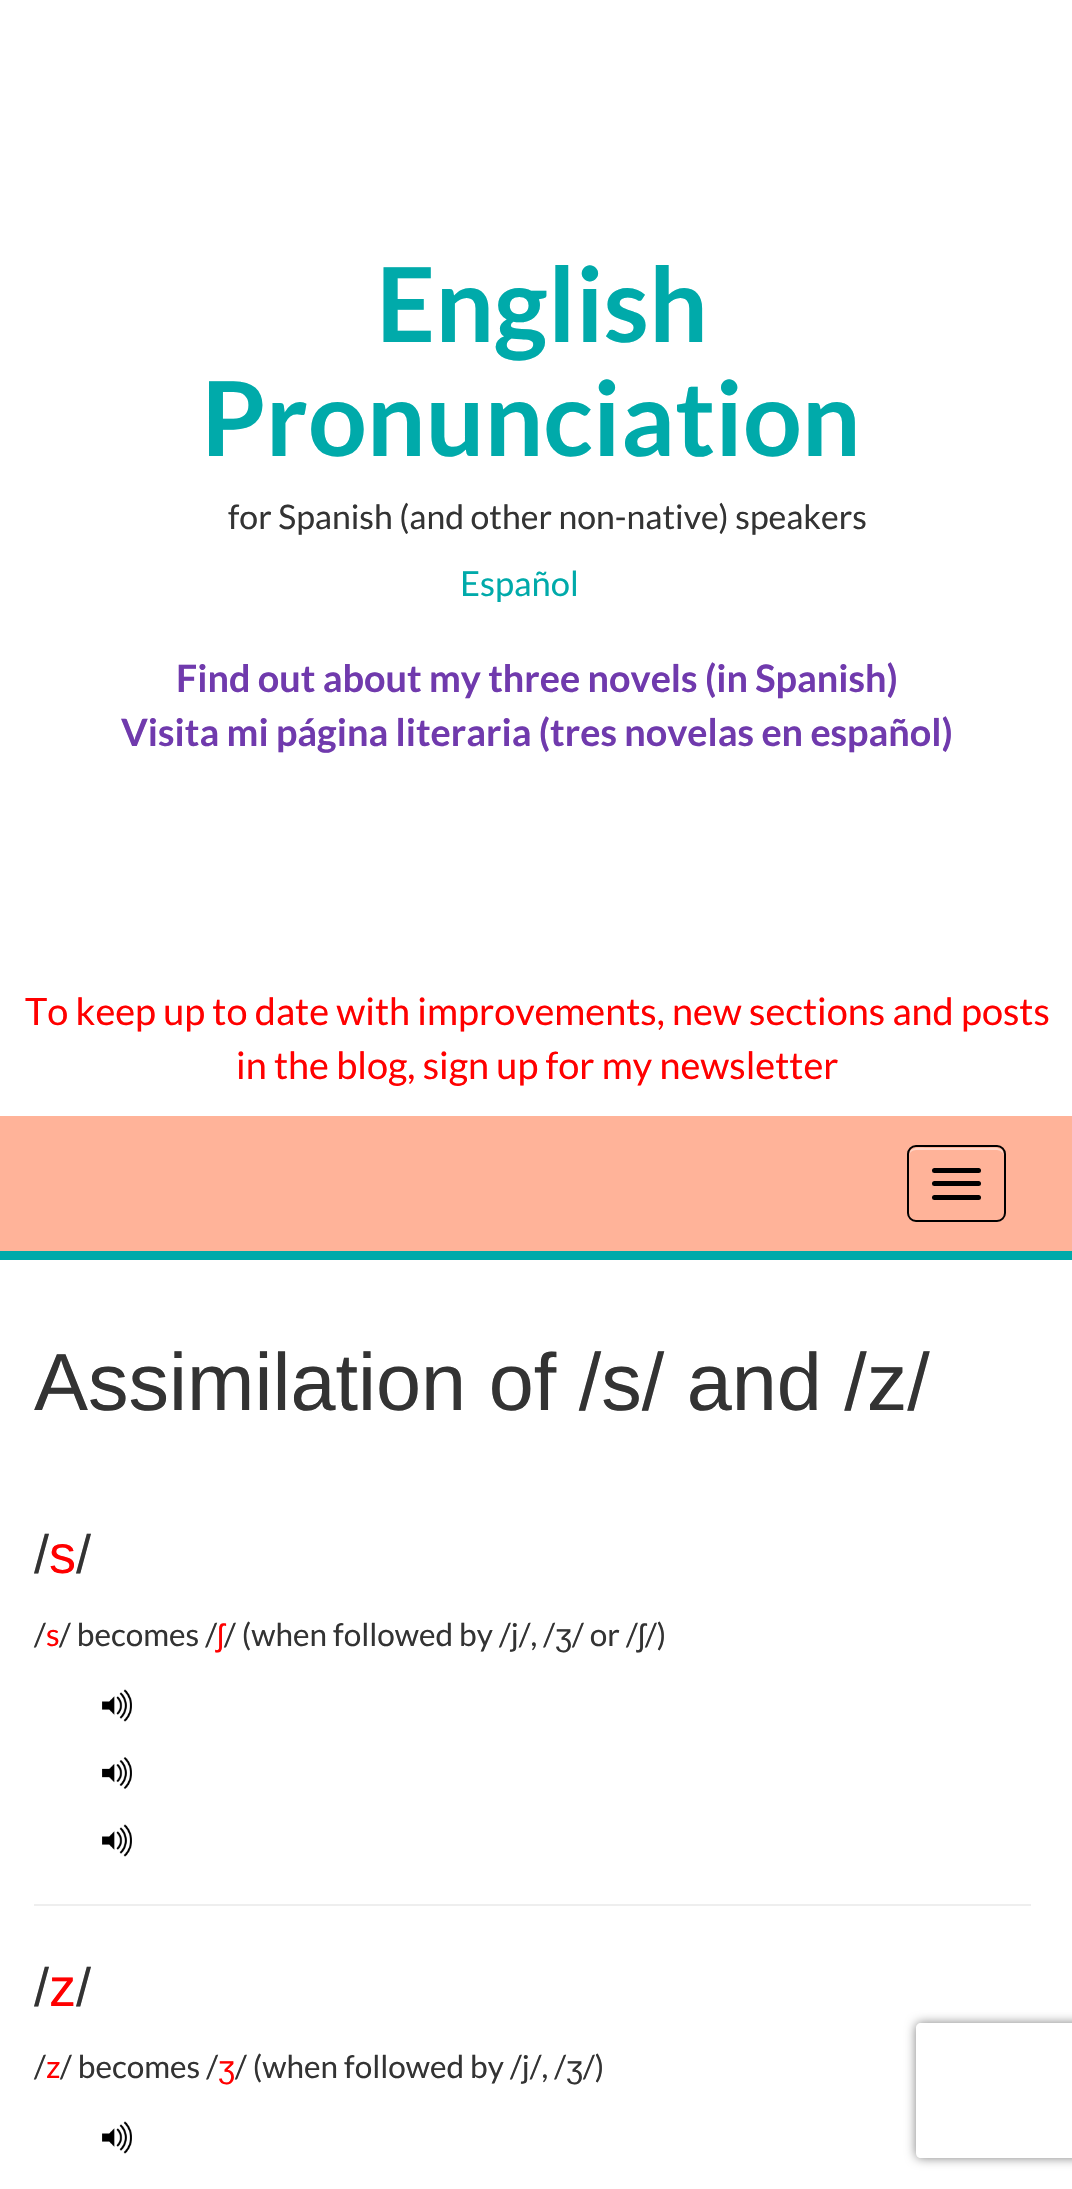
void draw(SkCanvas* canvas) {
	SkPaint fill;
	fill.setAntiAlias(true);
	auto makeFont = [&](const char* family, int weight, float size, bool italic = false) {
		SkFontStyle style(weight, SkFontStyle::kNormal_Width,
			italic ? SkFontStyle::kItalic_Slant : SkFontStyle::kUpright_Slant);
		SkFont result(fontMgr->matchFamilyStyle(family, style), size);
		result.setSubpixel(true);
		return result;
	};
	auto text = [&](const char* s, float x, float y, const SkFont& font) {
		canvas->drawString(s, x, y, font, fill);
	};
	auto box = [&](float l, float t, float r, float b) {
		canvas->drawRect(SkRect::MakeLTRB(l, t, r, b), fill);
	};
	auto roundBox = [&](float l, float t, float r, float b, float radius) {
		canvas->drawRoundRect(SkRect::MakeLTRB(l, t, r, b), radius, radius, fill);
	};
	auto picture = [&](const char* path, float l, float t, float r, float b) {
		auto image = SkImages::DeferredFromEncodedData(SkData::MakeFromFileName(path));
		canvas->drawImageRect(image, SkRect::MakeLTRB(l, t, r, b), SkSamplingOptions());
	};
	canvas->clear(0xFFFFFFFF);
	fill.setColor(0xFFFFB399);
	box(0, 1116, 1072, 1251);
	fill.setColor(0xFF00AAAA);
	box(0, 1251, 1072, 1260);
	fill.setColor(0xFFFFD9CC);
	canvas->drawPath(SkPathBuilder().moveTo(916, 1150).lineTo(997, 1150).cubicTo(1000, 1150, 1004, 1153, 1004, 1156).cubicTo(1004, 1145, 991, 1148, 984, 1148).lineTo(930, 1148).cubicTo(922, 1148, 909, 1145, 909, 1156).cubicTo(909, 1153, 912, 1150, 916, 1150).close().detach(), fill);
	fill.setStyle(SkPaint::kStroke_Style);
	fill.setStrokeWidth(2);
	fill.setColor(0xFF000000);
	canvas->drawRoundRect(SkRect::MakeLTRB(908, 1146, 1005, 1221), 8, 8, fill);
	fill.setStyle(SkPaint::kFill_Style);
	roundBox(932, 1168, 981, 1173, 2.5f);
	roundBox(932, 1181, 981, 1186, 2.5f);
	roundBox(932, 1195, 981, 1200, 2.5f);
	picture("image0.png", 102, 1689, 132, 1722);
	picture("image1.png", 102, 1757, 132, 1789);
	picture("image0.png", 102, 1824, 132, 1857);
	fill.setColor(0xFFEEEEEE);
	box(34, 1904, 1031, 1906);
	picture("image0.png", 102, 2121, 132, 2154);
	canvas->save();
	canvas->clipPath(SkPathBuilder(SkPathFillType::kEvenOdd).moveTo(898, 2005).lineTo(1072, 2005).lineTo(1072, 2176).lineTo(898, 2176).close().moveTo(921, 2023).lineTo(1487, 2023).cubicTo(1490, 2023, 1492, 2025, 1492, 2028).lineTo(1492, 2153).cubicTo(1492, 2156, 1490, 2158, 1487, 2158).lineTo(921, 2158).cubicTo(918, 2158, 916, 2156, 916, 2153).lineTo(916, 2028).cubicTo(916, 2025, 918, 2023, 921, 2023).close().detach(), true);
	fill.setColor(0xFF808080);
	fill.setMaskFilter(SkMaskFilter::MakeBlur(kNormal_SkBlurStyle, 5.5f));
	canvas->drawRoundRect(SkRect::MakeLTRB(916, 2023, 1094, 2158), 5, 5, fill);
	fill.setMaskFilter(nullptr);
	canvas->restore();
	auto font1 = makeFont("Lato", 700, 103.5f);
	fill.setColor(0xFF00AAAA);
	text("English", 376, 342, font1);
	text("Pronunciation", 201, 456, font1);
	auto font2 = makeFont("Lato", 400, 33.75f);
	fill.setColor(0xFF333333);
	text("for Spanish (and other non-native) speakers", 228, 529, font2);
	auto font3 = makeFont("Lato", 400, 34.5f);
	fill.setColor(0xFF00AAAA);
	text("Español", 460, 596, font3);
	auto font4 = makeFont("Lato", 700, 37.8f);
	fill.setColor(0xFF703AAD);
	text("Find out about my three novels (in Spanish)", 176, 692, font4);
	text("Visita mi página literaria (tres novelas en español)", 121, 746, font4);
	auto font5 = makeFont("Lato", 400, 37.8f);
	fill.setColor(0xFFFF0000);
	text("To keep up to date with improvements, new sections and posts", 25, 1025, font5);
	text("in the blog, sign up for my newsletter", 236, 1079, font5);
	auto font6 = makeFont("Liberation Sans", 400, 81);
	fill.setColor(0xFF333333);
	text("Assimilation of /s/ and /z/", 34, 1410, font6);
	auto font7 = makeFont("Liberation Sans", 400, 54);
	text("/", 34, 1573, font7);
	fill.setColor(0xFFFF0000);
	text("s", 49, 1573, font7);
	fill.setColor(0xFF333333);
	text("/", 76, 1573, font7);
	auto font8 = makeFont("Lato", 400, 31.5f);
	text("/", 34, 1646, font8);
	fill.setColor(0xFFFF0000);
	text("s", 46, 1646, font8);
	fill.setColor(0xFF333333);
	text("/ becomes /", 59, 1646, font8);
	auto font9 = makeFont("Liberation Sans", 400, 31.5f);
	fill.setColor(0xFFFF0000);
	text("ʃ", 217, 1646, font9);
	fill.setColor(0xFF333333);
	text("/ (when followed by /j/, /", 224, 1646, font8);
	text("ʒ", 555, 1646, font9);
	text("/ or /", 572, 1646, font8);
	text("ʃ", 638, 1646, font9);
	text("/)", 645, 1646, font8);
	text("/", 34, 2006, font7);
	fill.setColor(0xFFFF0000);
	text("z", 49, 2006, font7);
	fill.setColor(0xFF333333);
	text("/", 76, 2006, font7);
	text("/", 34, 2078, font8);
	fill.setColor(0xFFFF0000);
	text("z", 46, 2078, font8);
	fill.setColor(0xFF333333);
	text("/ becomes /", 60, 2078, font8);
	fill.setColor(0xFFFF0000);
	text("ʒ", 218, 2078, font9);
	fill.setColor(0xFF333333);
	text("/ (when followed by /j/, /", 235, 2078, font8);
	text("ʒ", 566, 2078, font9);
	text("/)", 583, 2078, font8);
}
